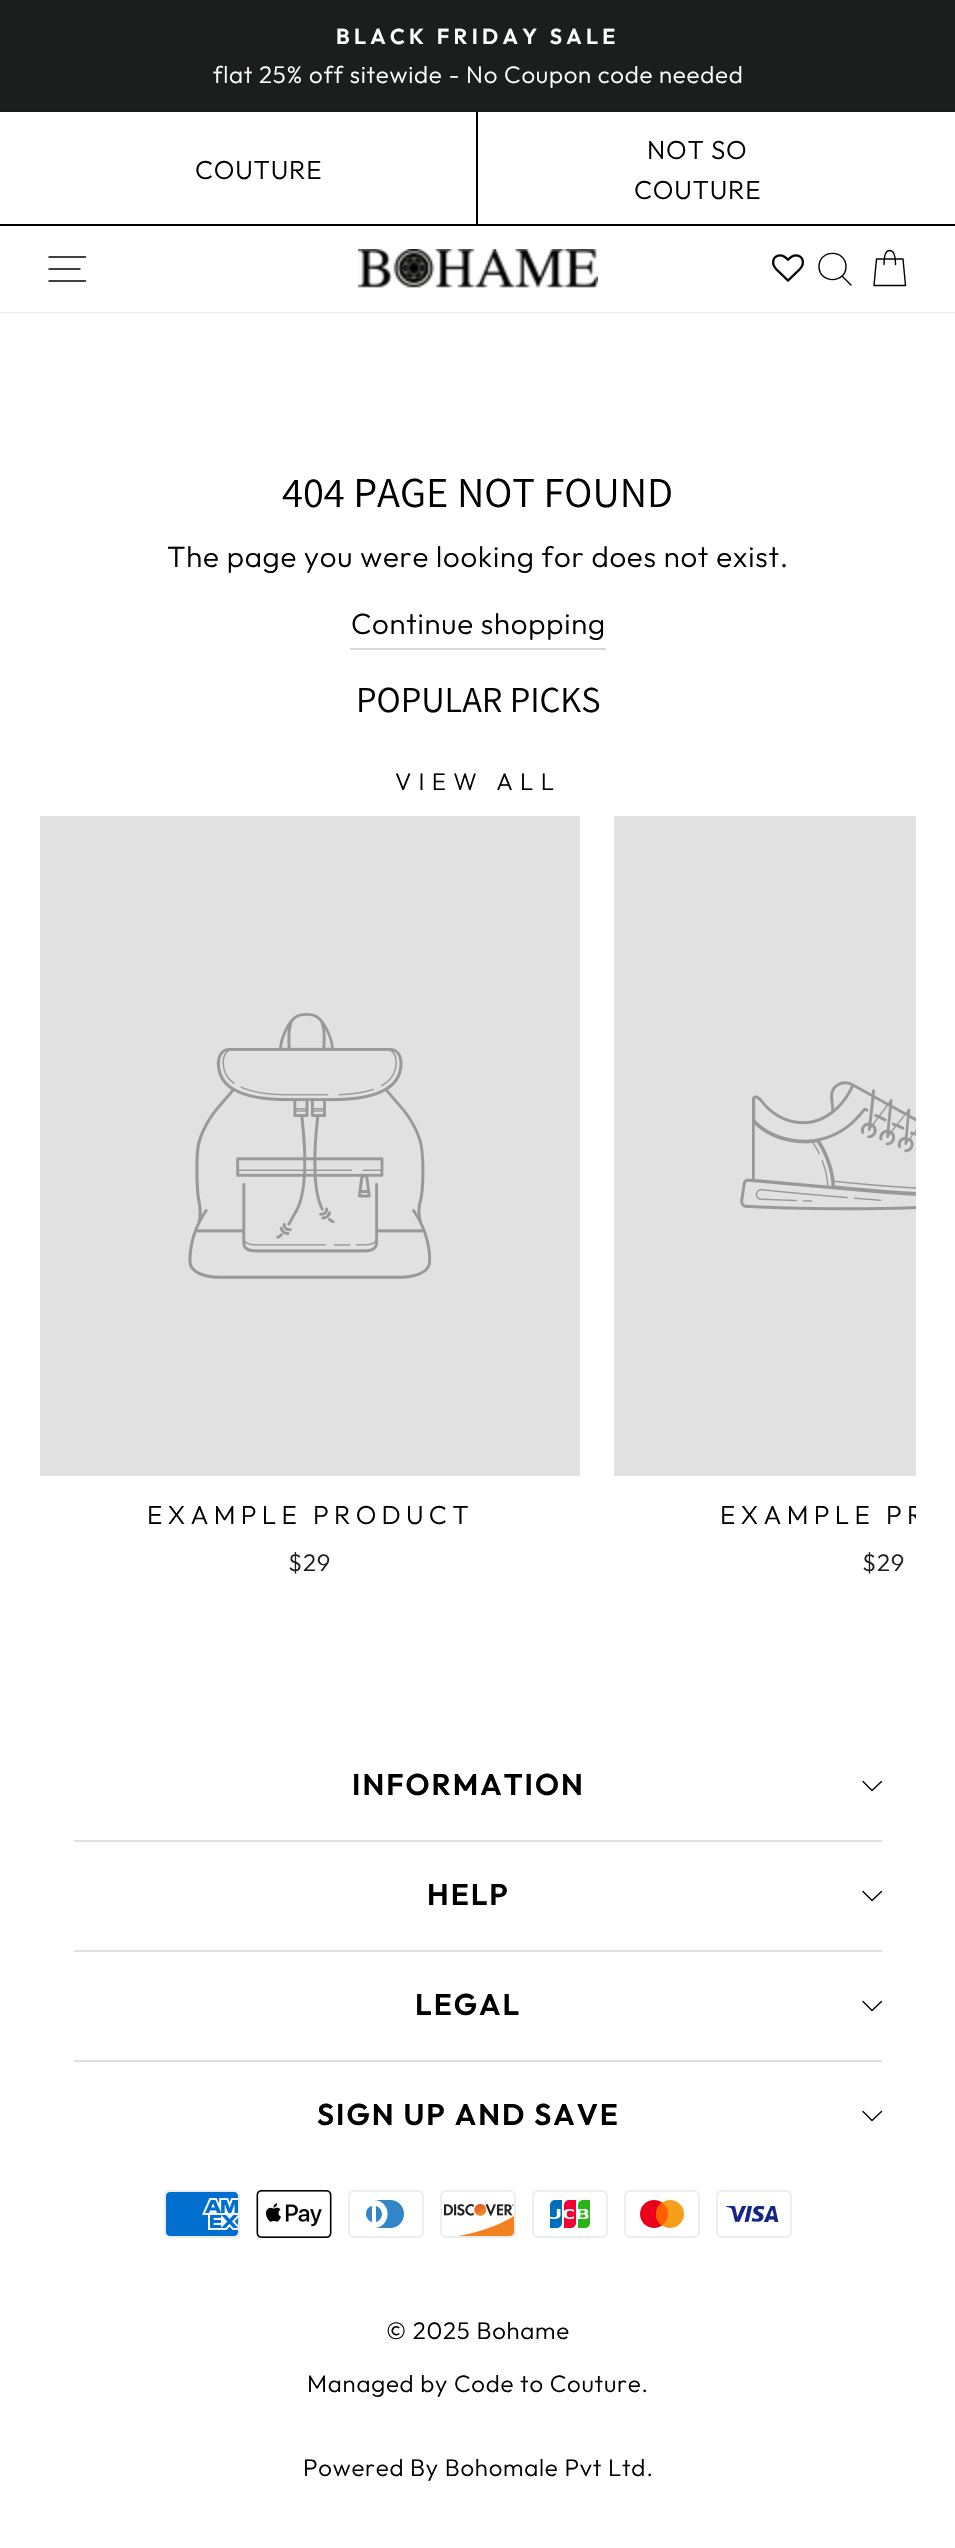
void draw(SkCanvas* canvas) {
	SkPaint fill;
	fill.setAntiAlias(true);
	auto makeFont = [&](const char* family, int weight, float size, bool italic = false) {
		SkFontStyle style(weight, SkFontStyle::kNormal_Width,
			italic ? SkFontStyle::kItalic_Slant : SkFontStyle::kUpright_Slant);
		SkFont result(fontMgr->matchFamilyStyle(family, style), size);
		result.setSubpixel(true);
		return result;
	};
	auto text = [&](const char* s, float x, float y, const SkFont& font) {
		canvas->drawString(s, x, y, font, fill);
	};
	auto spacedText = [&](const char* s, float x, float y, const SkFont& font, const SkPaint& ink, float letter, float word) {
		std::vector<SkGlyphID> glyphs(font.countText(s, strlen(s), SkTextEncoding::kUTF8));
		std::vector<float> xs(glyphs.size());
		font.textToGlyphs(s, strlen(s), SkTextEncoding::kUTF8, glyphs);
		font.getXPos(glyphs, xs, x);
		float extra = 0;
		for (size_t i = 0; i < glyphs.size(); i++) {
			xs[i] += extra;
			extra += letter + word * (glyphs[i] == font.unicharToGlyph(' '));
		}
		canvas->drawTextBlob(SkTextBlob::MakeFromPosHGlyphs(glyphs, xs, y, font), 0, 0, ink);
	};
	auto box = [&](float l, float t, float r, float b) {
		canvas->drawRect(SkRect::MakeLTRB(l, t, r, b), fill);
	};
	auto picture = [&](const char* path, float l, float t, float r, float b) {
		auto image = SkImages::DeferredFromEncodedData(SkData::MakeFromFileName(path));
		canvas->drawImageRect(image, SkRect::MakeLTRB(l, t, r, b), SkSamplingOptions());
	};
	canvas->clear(0xFFFFFFFF);
	fill.setColor(0xFF1C1D1D);
	box(0, 0, 955, 112);
	canvas->save();
	canvas->clipPath(SkPathBuilder(SkPathFillType::kEvenOdd).moveTo(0, 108).lineTo(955, 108).lineTo(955, 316).lineTo(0, 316).close().moveTo(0, 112).lineTo(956, 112).lineTo(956, 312).lineTo(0, 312).close().detach(), true);
	fill.setColor(0x33000000);
	fill.setMaskFilter(SkMaskFilter::MakeBlur(kNormal_SkBlurStyle, 1));
	canvas->drawRect(SkRect::MakeLTRB(0, 112, 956, 312), fill);
	fill.setMaskFilter(nullptr);
	canvas->restore();
	fill.setColor(0xFF000000);
	box(476, 112, 478, 224);
	box(0, 224, 955, 226);
	fill.setStyle(SkPaint::kStroke_Style);
	fill.setStrokeWidth(1.4f);
	fill.setStrokeCap(SkPaint::kRound_Cap);
	fill.setStrokeJoin(SkPaint::kRound_Join);
	canvas->drawPath(SkPathBuilder().moveTo(49, 257).lineTo(85.5f, 257).moveTo(49, 269).lineTo(80, 269).moveTo(49, 281).lineTo(85.5f, 281).detach(), fill);
	picture("image0.png", 358, 249, 598, 288);
	picture("image1.png", 772, 254, 804, 282);
	canvas->drawPath(SkPathBuilder().moveTo(846, 266.5f).cubicTo(846, 284, 819, 284, 819, 266.5f).cubicTo(819, 249, 846, 249, 846, 266.5f).close().moveTo(851, 285).lineTo(842, 276).detach(), fill);
	canvas->drawPath(SkPathBuilder().moveTo(884, 264.5f).cubicTo(884, 253.5f, 886.5f, 250.5f, 889.5f, 250.5f).cubicTo(893, 250.5f, 895.5f, 253.5f, 895.5f, 264.5f).moveTo(876.5f, 259).lineTo(903, 259).lineTo(905.5f, 285.5f).lineTo(874, 285.5f).close().detach(), fill);
	fill.setStyle(SkPaint::kFill_Style);
	fill.setColor(0xFFD9D9D9);
	box(350, 648, 606, 650);
	fill.setColor(0xFFE1E1E1);
	box(40, 816, 580, 1476);
	picture("image2.png", 188, 1013, 431, 1279);
	box(614, 816, 916, 1476);
	picture("image3.png", 740, 1081, 916, 1211);
	fill.setStyle(SkPaint::kStroke_Style);
	fill.setColor(0xFF000000);
	canvas->drawPath(SkPathBuilder().moveTo(863, 1781.5f).lineTo(872, 1790.5f).lineTo(881.5f, 1781.5f).detach(), fill);
	fill.setStyle(SkPaint::kFill_Style);
	fill.setColor(0xFFE0E0E0);
	box(74, 1840, 882, 1842);
	fill.setStyle(SkPaint::kStroke_Style);
	fill.setColor(0xFF000000);
	canvas->drawPath(SkPathBuilder().moveTo(863, 1891.5f).lineTo(872, 1900.5f).lineTo(881.5f, 1891.5f).detach(), fill);
	fill.setStyle(SkPaint::kFill_Style);
	fill.setColor(0xFFE0E0E0);
	box(74, 1950, 882, 1952);
	fill.setStyle(SkPaint::kStroke_Style);
	fill.setColor(0xFF000000);
	canvas->drawPath(SkPathBuilder().moveTo(863, 2001.5f).lineTo(872, 2010.5f).lineTo(881.5f, 2001.5f).detach(), fill);
	fill.setStyle(SkPaint::kFill_Style);
	fill.setColor(0xFFE0E0E0);
	box(74, 2060, 882, 2062);
	fill.setStyle(SkPaint::kStroke_Style);
	fill.setColor(0xFF000000);
	canvas->drawPath(SkPathBuilder().moveTo(863, 2111.5f).lineTo(872, 2120.5f).lineTo(881.5f, 2111.5f).detach(), fill);
	picture("image4.png", 164, 2190, 240, 2238);
	picture("image5.png", 256, 2190, 332, 2238);
	picture("image6.png", 348, 2190, 424, 2238);
	picture("image7.png", 440, 2190, 516, 2238);
	picture("image8.png", 532, 2190, 608, 2238);
	picture("image9.png", 624, 2190, 700, 2238);
	picture("image10.png", 716, 2190, 792, 2238);
	auto font1 = makeFont("Outfit", 600, 21.6f);
	fill.setStyle(SkPaint::kFill_Style);
	fill.setColor(0xFFFFFFFF);
	spacedText("BLACK FRIDAY SALE", 336, 44, font1, fill, 4.3f, 0);
	auto font2 = makeFont("Outfit", 300, 24);
	spacedText("flat 25% off sitewide - No Coupon code needed", 213, 83, font2, fill, 0.75f, 0);
	auto font3 = makeFont("Outfit", 300, 26);
	fill.setColor(0xFF000000);
	spacedText("COUTURE", 195, 179, font3, fill, 0.75f, 0);
	spacedText("NOT SO", 647, 159, font3, fill, 0.75f, 0);
	spacedText("COUTURE", 634, 199, font3, fill, 0.75f, 0);
	auto font4 = makeFont("Assistant", 400, 42.5f);
	text("404 PAGE NOT FOUND", 282, 507, font4);
	auto font5 = makeFont("Outfit", 300, 29.4f);
	spacedText("The page you were looking for does not exist.", 167, 567, font5, fill, 0.75f, 0);
	spacedText("Continue shopping", 351, 634, font5, fill, 0.75f, 0);
	auto font6 = makeFont("Assistant", 400, 36.5f);
	text("POPULAR PICKS", 356, 712, font6);
	spacedText("VIEW ALL", 395, 790, font2, fill, 7.25f, 0);
	spacedText("EXAMPLE PRODUCT", 147, 1524, font3, fill, 5.25f, 0);
	fill.setColor(0xFF1C1D1D);
	spacedText("$29", 288, 1571, font2, fill, 0.75f, 0);
	canvas->save();
	canvas->clipRect(SkRect::MakeLTRB(40, 816, 916, 1670));
	fill.setColor(0xFF000000);
	spacedText("EXAMPLE PR", 720, 1524, font3, fill, 5.25f, 0);
	canvas->restore();
	fill.setColor(0xFF1C1D1D);
	spacedText("$29", 862, 1571, font2, fill, 0.75f, 0);
	auto font7 = makeFont("Outfit", 600, 30);
	fill.setColor(0xFF000000);
	spacedText("INFORMATION", 352, 1795, font7, fill, 2, 0);
	spacedText("HELP", 427, 1905, font7, fill, 2, 0);
	spacedText("LEGAL", 415, 2015, font7, fill, 2, 0);
	spacedText("SIGN UP AND SAVE", 317, 2125, font7, fill, 2, 0);
	spacedText("© 2025 Bohame", 386, 2339, font2, fill, 0.75f, 0);
	spacedText("Managed by Code to Couture.", 307, 2392, font2, fill, 0.75f, 0);
	spacedText("Powered By Bohomale Pvt Ltd.", 303, 2476, font2, fill, 0.75f, 0);
}
